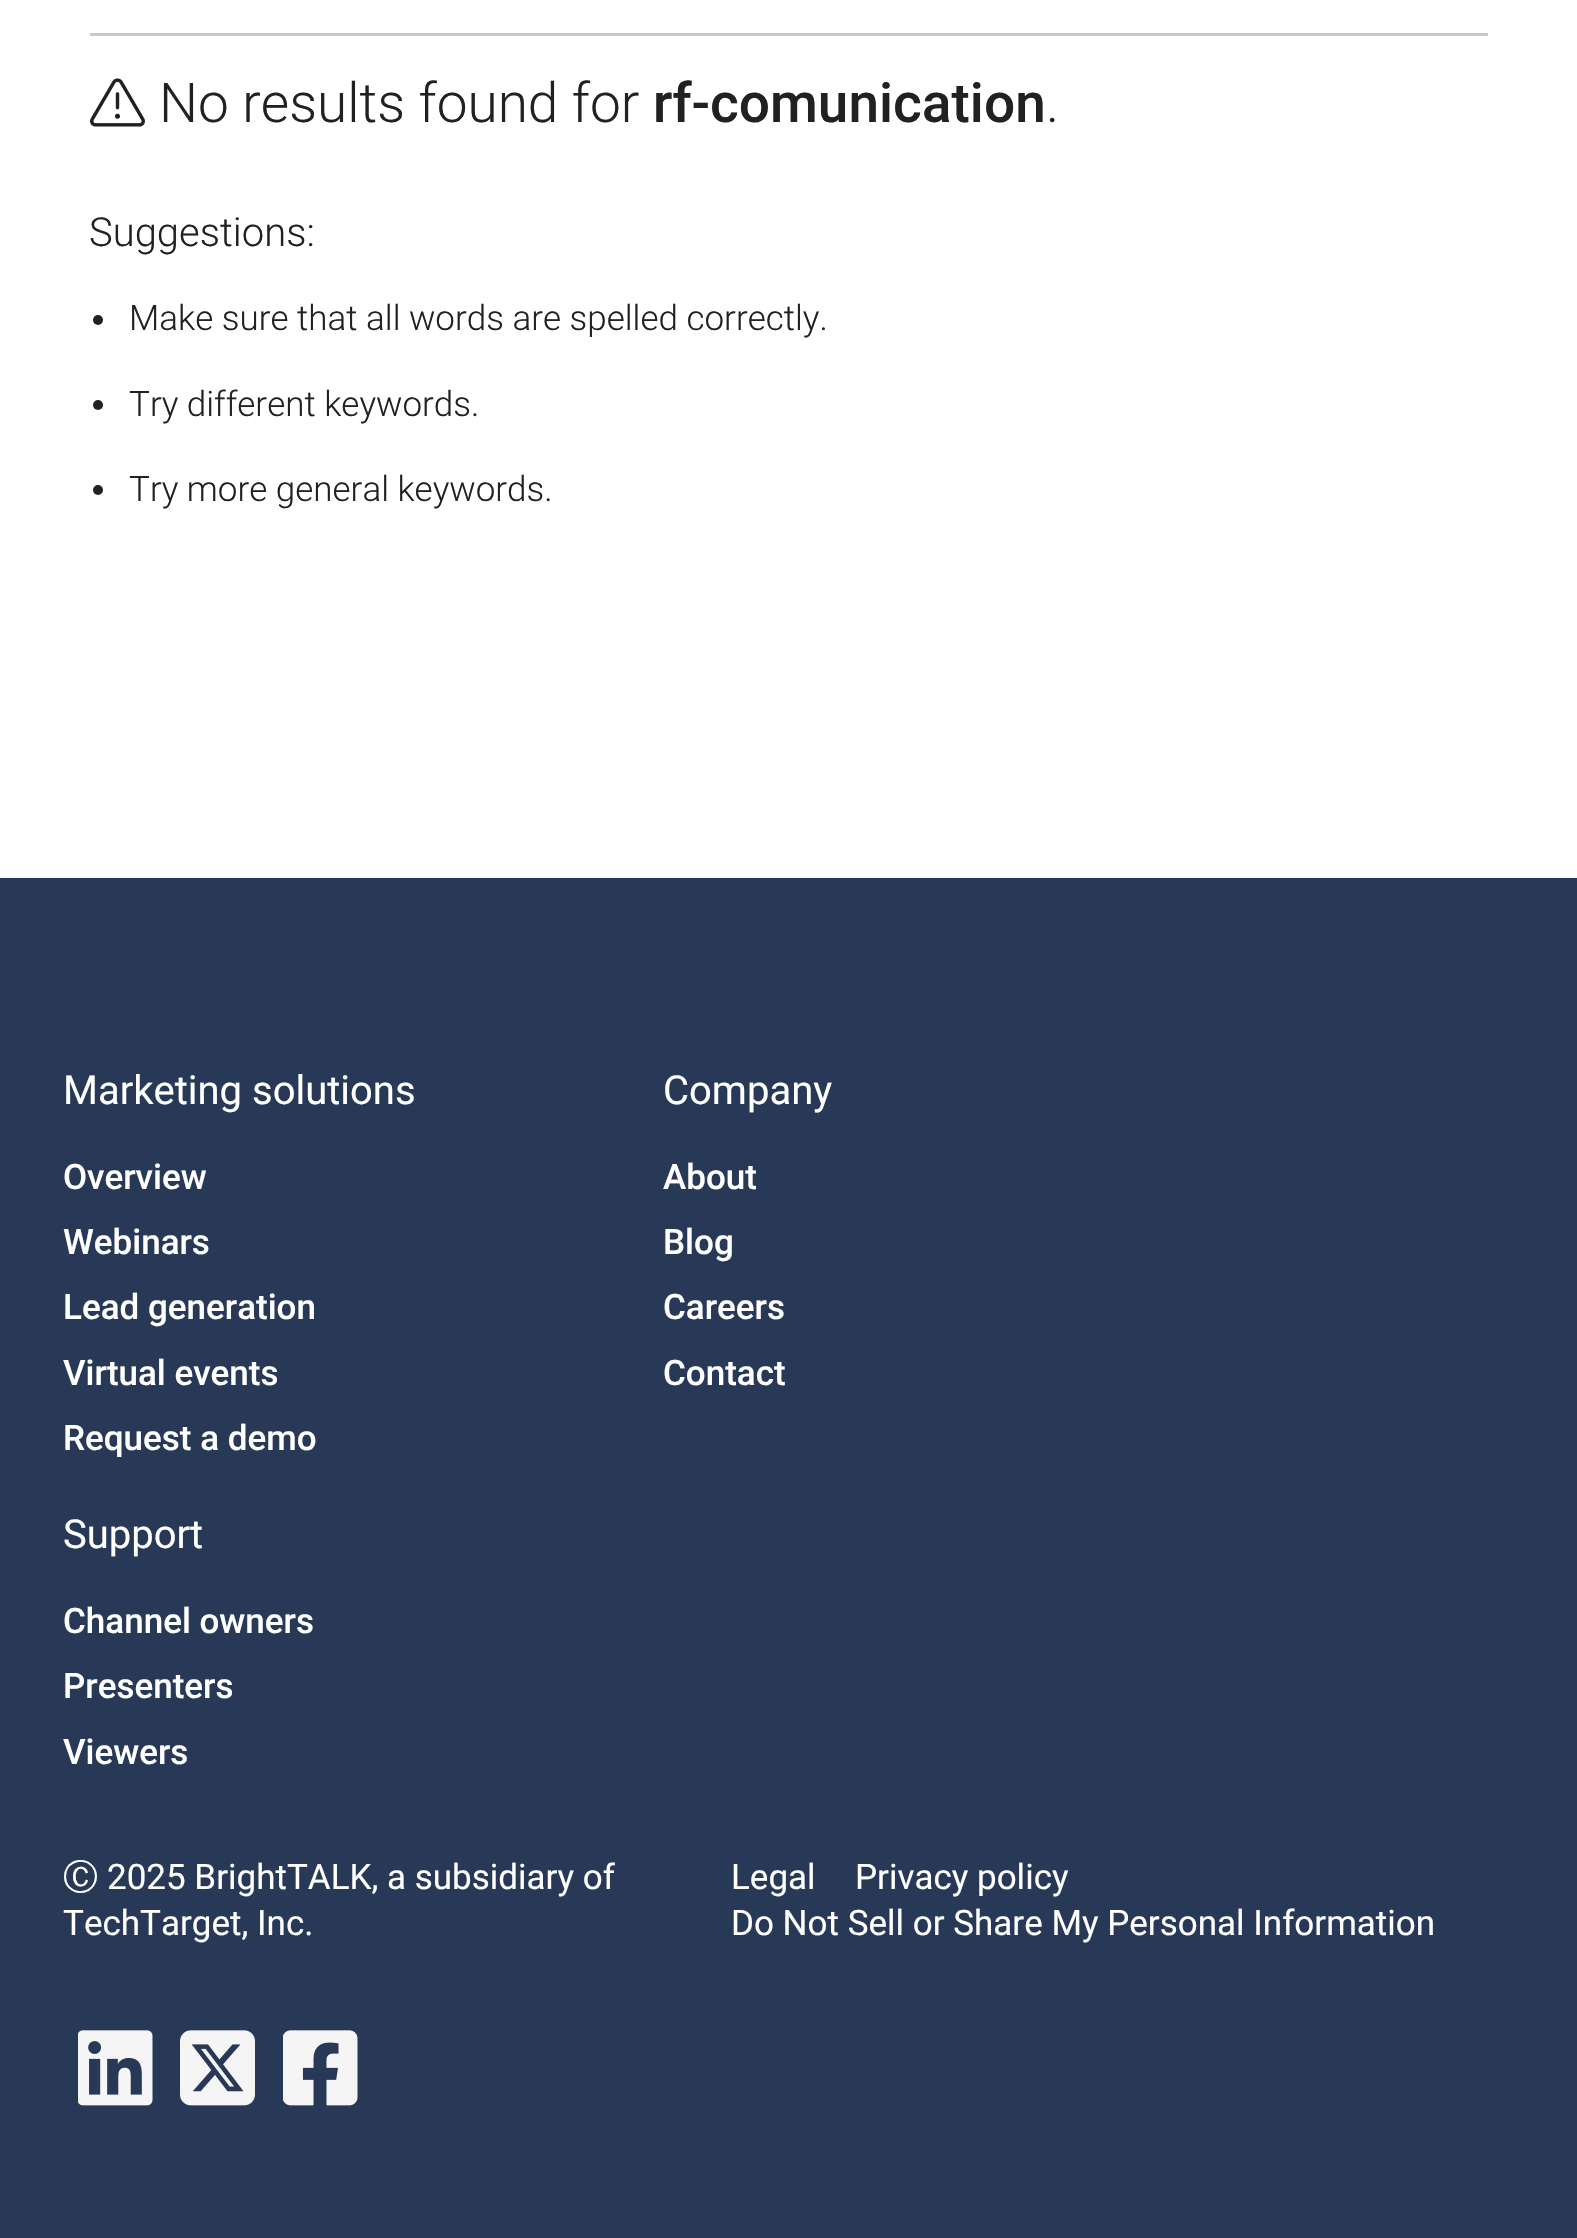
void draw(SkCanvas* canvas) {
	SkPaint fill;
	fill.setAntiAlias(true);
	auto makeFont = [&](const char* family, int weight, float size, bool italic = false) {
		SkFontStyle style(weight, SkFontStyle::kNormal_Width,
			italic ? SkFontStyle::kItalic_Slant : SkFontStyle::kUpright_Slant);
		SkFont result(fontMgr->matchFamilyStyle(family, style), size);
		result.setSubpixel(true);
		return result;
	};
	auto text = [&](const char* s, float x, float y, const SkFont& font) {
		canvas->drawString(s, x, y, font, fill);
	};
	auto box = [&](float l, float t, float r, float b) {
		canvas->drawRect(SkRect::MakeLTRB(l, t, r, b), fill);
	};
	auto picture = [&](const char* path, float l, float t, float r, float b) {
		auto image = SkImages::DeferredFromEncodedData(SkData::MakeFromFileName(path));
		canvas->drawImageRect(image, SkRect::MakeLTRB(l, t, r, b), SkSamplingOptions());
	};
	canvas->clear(0xFFFFFFFF);
	fill.setColor(0xFFC8C8C8);
	box(90, 33, 1488, 36);
	picture("image0.png", 90, 78, 145, 127);
	fill.setColor(0xFF212121);
	canvas->drawCircle(98, 320, 5, fill);
	canvas->drawCircle(98, 405, 5, fill);
	canvas->drawCircle(98, 490, 5, fill);
	fill.setColor(0xFF283857);
	box(0, 878, 1577, 2238);
	picture("image1.png", 78, 2030, 153, 2106);
	picture("image2.png", 180, 2030, 255, 2106);
	picture("image3.png", 283, 2030, 358, 2106);
	auto font1 = makeFont("Roboto", 300, 55);
	fill.setColor(0xFF212121);
	text("No results found for", 159, 122, font1);
	auto font2 = makeFont("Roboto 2", 500, 55);
	text("rf-comunication", 653, 122, font2);
	text(".", 1046, 122, font1);
	auto font3 = makeFont("Roboto", 300, 40);
	text("Suggestions:", 89, 246, font3);
	auto font4 = makeFont("Roboto", 300, 35);
	text("Make sure that all words are spelled correctly.", 129, 330, font4);
	text("Try different keywords.", 129, 416, font4);
	text("Try more general keywords.", 129, 501, font4);
	auto font5 = makeFont("Roboto", 400, 40);
	fill.setColor(0xFFFFFFFF);
	text("Marketing solutions", 63, 1104, font5);
	auto font6 = makeFont("Roboto", 500, 35);
	text("Overview", 63, 1189, font6);
	text("Webinars", 63, 1254, font6);
	text("Lead generation", 63, 1319, font6);
	text("Virtual events", 63, 1385, font6);
	text("Request a demo", 63, 1450, font6);
	text("Company", 663, 1104, font5);
	text("About", 663, 1189, font6);
	text("Blog", 663, 1254, font6);
	text("Careers", 663, 1319, font6);
	text("Contact", 663, 1385, font6);
	text("Support", 63, 1548, font5);
	text("Channel owners", 63, 1633, font6);
	text("Presenters", 63, 1698, font6);
	text("Viewers", 63, 1764, font6);
	auto font7 = makeFont("WenQuanYi Zen Hei", 500, 35);
	text("Ⓒ", 63, 1889, font7);
	auto font8 = makeFont("Roboto", 400, 35);
	text("2025 BrightTALK, a subsidiary of", 107, 1889, font8);
	text("TechTarget, Inc.", 63, 1935, font8);
	text("Legal", 731, 1889, font8);
	text("Privacy policy", 855, 1889, font8);
	text("Do Not Sell or Share My Personal Information", 731, 1935, font8);
}
